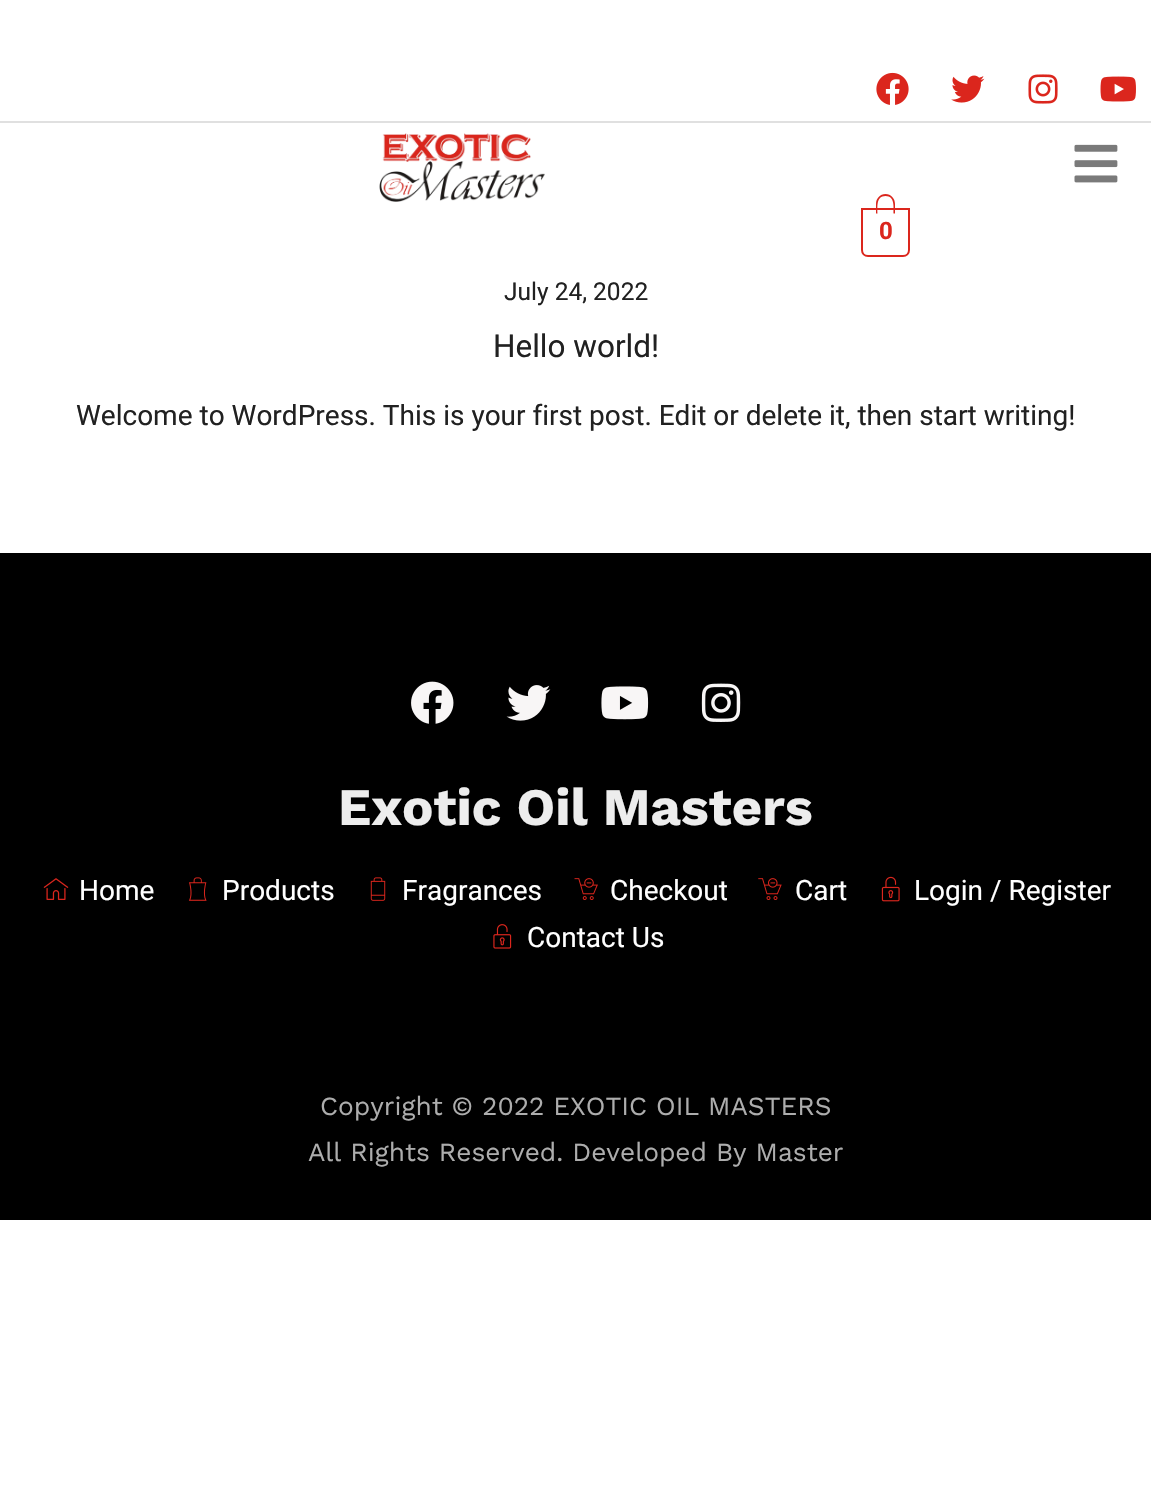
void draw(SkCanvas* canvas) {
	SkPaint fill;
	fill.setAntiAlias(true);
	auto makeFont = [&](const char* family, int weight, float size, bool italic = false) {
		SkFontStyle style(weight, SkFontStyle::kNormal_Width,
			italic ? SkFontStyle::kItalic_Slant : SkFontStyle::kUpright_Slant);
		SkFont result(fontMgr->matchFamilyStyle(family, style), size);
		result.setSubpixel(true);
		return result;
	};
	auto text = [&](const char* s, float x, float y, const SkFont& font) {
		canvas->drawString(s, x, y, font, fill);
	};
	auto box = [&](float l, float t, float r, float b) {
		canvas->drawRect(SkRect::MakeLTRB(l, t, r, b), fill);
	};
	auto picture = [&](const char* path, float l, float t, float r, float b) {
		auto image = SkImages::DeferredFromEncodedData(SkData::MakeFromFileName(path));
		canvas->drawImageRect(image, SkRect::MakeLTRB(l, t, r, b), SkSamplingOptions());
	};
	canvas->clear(0xFFFFFFFF);
	fill.setColor(0xFFE0E0E0);
	box(0, 121, 1151, 123);
	picture("image0.png", 876, 72, 909, 105);
	picture("image1.png", 951, 75, 985, 103);
	picture("image2.png", 1028, 74, 1058, 104);
	picture("image3.png", 1100, 76, 1136, 102);
	picture("image4.png", 379, 133, 545, 202);
	picture("image5.png", 1074, 144, 1118, 183);
	fill.setStyle(SkPaint::kStroke_Style);
	fill.setStrokeWidth(2);
	fill.setColor(0xFFDB261D);
	canvas->drawPath(SkPathBuilder().moveTo(862, 209).lineTo(909, 209).lineTo(909, 250).cubicTo(909, 253.5f, 906.5f, 256, 903, 256).lineTo(868, 256).cubicTo(864.5f, 256, 862, 253.5f, 862, 250).close().detach(), fill);
	fill.setStyle(SkPaint::kFill_Style);
	canvas->drawPath(SkPathBuilder(SkPathFillType::kEvenOdd).moveTo(885.5f, 194).cubicTo(891, 194, 895, 198.5f, 895, 204).lineTo(895, 213.5f).lineTo(876, 213.5f).lineTo(876, 204).cubicTo(876, 198.5f, 880, 194, 885.5f, 194).close().moveTo(885.5f, 196).cubicTo(895, 196, 893.5f, 207, 893.5f, 213.5f).lineTo(877.5f, 213.5f).cubicTo(877.5f, 207, 876, 196, 885.5f, 196).close().detach(), fill);
	fill.setColor(0xFF000000);
	box(0, 553, 1151, 1220);
	picture("image6.png", 411, 681, 454, 724);
	picture("image7.png", 506, 685, 551, 721);
	picture("image8.png", 601, 686, 649, 720);
	picture("image9.png", 701, 683, 741, 722);
	picture("image10.png", 43, 878, 69, 900);
	picture("image11.png", 188, 877, 207, 901);
	picture("image12.png", 370, 877, 386, 901);
	picture("image13.png", 574, 878, 598, 900);
	picture("image14.png", 758, 878, 782, 900);
	picture("image15.png", 881, 876, 900, 902);
	picture("image16.png", 493, 924, 512, 949);
	auto font1 = makeFont("Roboto", 700, 24);
	fill.setColor(0xFFDB261D);
	text("0", 879, 239, font1);
	auto font2 = makeFont("Roboto", 400, 24.5f);
	fill.setColor(0xFF212121);
	text("July 24, 2022", 504, 300, font2);
	auto font3 = makeFont("Roboto", 400, 31.5f);
	text("Hello world!", 493, 357, font3);
	auto font4 = makeFont("Roboto", 400, 28);
	text("Welcome to WordPress. This is your first post. Edit or delete it, then start writing!", 76, 425, font4);
	auto font5 = makeFont("Work Sans", 700, 52.5f);
	fill.setColor(0xFFEDEDED);
	text("Exotic Oil Masters", 338, 825, font5);
	fill.setColor(0xFFFFFFFF);
	text("Home", 79, 900, font4);
	text("Products", 222, 900, font4);
	text("Fragrances", 402, 900, font4);
	text("Checkout", 610, 900, font4);
	text("Cart", 795, 900, font4);
	text("Login / Register", 914, 900, font4);
	text("Contact Us", 527, 947, font4);
	auto font6 = makeFont("Work Sans", 400, 26.25f);
	fill.setColor(0xFFADADAD);
	text("Copyright © 2022 EXOTIC OIL MASTERS", 320, 1115, font6);
	text("All Rights Reserved. Developed By Master", 308, 1161, font6);
}
